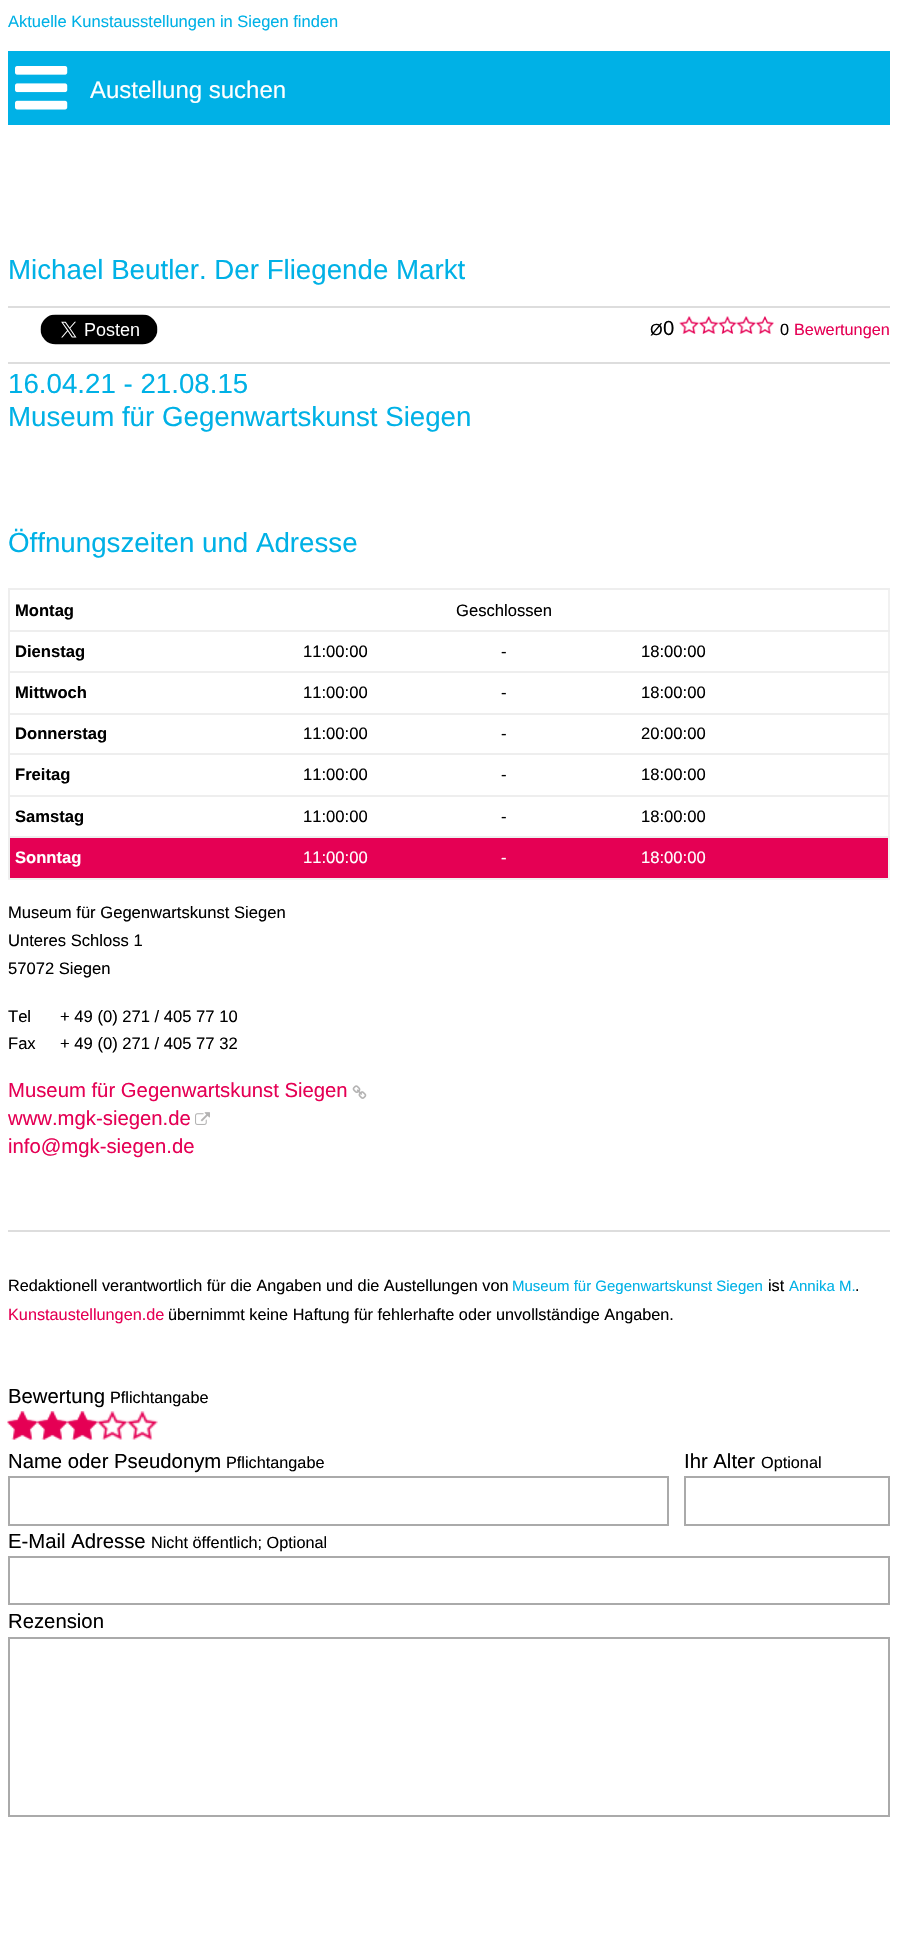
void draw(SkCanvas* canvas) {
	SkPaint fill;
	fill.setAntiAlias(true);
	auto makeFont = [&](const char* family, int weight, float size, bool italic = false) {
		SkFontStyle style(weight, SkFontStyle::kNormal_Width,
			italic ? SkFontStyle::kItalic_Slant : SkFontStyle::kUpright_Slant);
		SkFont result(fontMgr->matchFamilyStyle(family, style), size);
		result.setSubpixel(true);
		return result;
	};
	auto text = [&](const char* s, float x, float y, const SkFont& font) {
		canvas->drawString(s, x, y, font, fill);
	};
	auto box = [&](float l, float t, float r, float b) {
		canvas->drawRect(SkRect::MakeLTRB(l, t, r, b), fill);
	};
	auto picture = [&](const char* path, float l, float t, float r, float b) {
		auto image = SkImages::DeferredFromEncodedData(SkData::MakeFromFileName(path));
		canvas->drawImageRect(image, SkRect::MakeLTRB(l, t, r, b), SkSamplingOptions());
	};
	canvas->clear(0xFFFFFFFF);
	fill.setColor(0xFF00B1E6);
	box(8, 51, 890, 125);
	picture("image0.png", 15, 66, 68, 110);
	fill.setColor(0xFFDDDDDD);
	box(8, 306, 890, 308);
	picture("image1.png", 40, 314, 158, 345);
	picture("image2.png", 679, 316, 699, 334);
	picture("image3.png", 699, 316, 719, 334);
	picture("image4.png", 718, 316, 737, 334);
	picture("image5.png", 736, 316, 756, 334);
	picture("image6.png", 756, 316, 774, 334);
	box(8, 362, 890, 364);
	fill.setColor(0xFFF1F1F1);
	box(888, 588, 890, 879);
	box(8, 878, 890, 880);
	fill.setColor(0xFFEEEEEE);
	box(8, 588, 10, 879);
	box(8, 588, 890, 590);
	box(8, 630, 890, 632);
	box(8, 671, 890, 673);
	box(8, 713, 890, 715);
	box(8, 753, 890, 755);
	box(8, 795, 890, 797);
	fill.setColor(0xFFE50054);
	box(10, 838, 888, 878);
	fill.setColor(0xFFEEEEEE);
	box(8, 836, 890, 838);
	picture("image7.png", 352, 1085, 367, 1099);
	picture("image8.png", 195, 1112, 210, 1125);
	fill.setColor(0xFFDDDDDD);
	box(8, 1230, 890, 1232);
	picture("image9.png", 7, 1411, 158, 1440);
	picture("image10.png", 7, 1411, 98, 1440);
	fill.setStyle(SkPaint::kStroke_Style);
	fill.setStrokeWidth(2);
	fill.setColor(0xFFAAAAAA);
	canvas->drawRect(SkRect::MakeLTRB(9, 1477, 668, 1525), fill);
	canvas->drawRect(SkRect::MakeLTRB(685, 1477, 889, 1525), fill);
	canvas->drawRect(SkRect::MakeLTRB(9, 1557, 889, 1604), fill);
	canvas->drawRect(SkRect::MakeLTRB(9, 1638, 889, 1816), fill);
	auto font1 = makeFont("Liberation Sans", 400, 16.5f);
	fill.setStyle(SkPaint::kFill_Style);
	fill.setColor(0xFF00B1E6);
	text("Aktuelle Kunstausstellungen in Siegen finden", 8, 27, font1);
	auto font2 = makeFont("Liberation Sans", 400, 24);
	fill.setColor(0xFFFFFFFF);
	text("Austellung suchen", 90, 98, font2);
	auto font3 = makeFont("Liberation Sans", 400, 27.7f);
	fill.setColor(0xFF00B1E6);
	text("Michael Beutler. Der Fliegende Markt", 8, 279, font3);
	auto font4 = makeFont("Liberation Sans", 400, 16.25f);
	fill.setColor(0xFF000000);
	text("Ø", 650, 335, font4);
	auto font5 = makeFont("Liberation Sans", 400, 20.3f);
	text("0", 663, 335, font5);
	text("0", 780, 335, font4);
	fill.setColor(0xFFE50054);
	text("Bewertungen", 794, 335, font4);
	fill.setColor(0xFF00B1E6);
	text("16.04.21 - 21.08.15", 8, 393, font3);
	text("Museum für Gegenwartskunst Siegen", 8, 426, font3);
	text("Öffnungszeiten und Adresse", 8, 552, font3);
	auto font6 = makeFont("Liberation Sans", 700, 16.6f);
	fill.setColor(0xFF000000);
	text("Montag", 15, 616, font6);
	auto font7 = makeFont("Liberation Sans", 400, 16.6f);
	text("Geschlossen", 456, 616, font7);
	text("Dienstag", 15, 657, font6);
	text("11:00:00", 303, 657, font7);
	text("-", 501, 657, font7);
	text("18:00:00", 641, 657, font7);
	text("Mittwoch", 15, 698, font6);
	text("11:00:00", 303, 698, font7);
	text("-", 501, 698, font7);
	text("18:00:00", 641, 698, font7);
	text("Donnerstag", 15, 739, font6);
	text("11:00:00", 303, 739, font7);
	text("-", 501, 739, font7);
	text("20:00:00", 641, 739, font7);
	text("Freitag", 15, 780, font6);
	text("11:00:00", 303, 780, font7);
	text("-", 501, 780, font7);
	text("18:00:00", 641, 780, font7);
	text("Samstag", 15, 822, font6);
	text("11:00:00", 303, 822, font7);
	text("-", 501, 822, font7);
	text("18:00:00", 641, 822, font7);
	fill.setColor(0xFFFFFFFF);
	text("Sonntag", 15, 863, font6);
	text("11:00:00", 303, 863, font7);
	text("-", 501, 863, font7);
	text("18:00:00", 641, 863, font7);
	fill.setColor(0xFF000000);
	text("Museum für Gegenwartskunst Siegen", 8, 918, font7);
	text("Unteres Schloss 1", 8, 946, font7);
	text("57072 Siegen", 8, 974, font7);
	text("Tel", 8, 1022, font7);
	text("+ 49 (0) 271 / 405 77 10", 60, 1022, font7);
	text("Fax", 8, 1049, font7);
	text("+ 49 (0) 271 / 405 77 32", 60, 1049, font7);
	fill.setColor(0xFFE50054);
	text("Museum für Gegenwartskunst Siegen", 8, 1097, font5);
	text("www.mgk-siegen.de", 8, 1125, font5);
	text("info@mgk-siegen.de", 8, 1153, font5);
	fill.setColor(0xFF000000);
	text("Redaktionell verantwortlich für die Angaben und die Austellungen von", 8, 1291, font4);
	auto font8 = makeFont("Liberation Sans", 400, 15);
	fill.setColor(0xFF00B1E6);
	text("Museum für Gegenwartskunst Siegen", 512, 1291, font8);
	fill.setColor(0xFF000000);
	text("ist", 768, 1291, font4);
	fill.setColor(0xFF00B1E6);
	text("Annika M.", 789, 1291, font8);
	fill.setColor(0xFF000000);
	text(".", 855, 1291, font4);
	fill.setColor(0xFFE50054);
	text("Kunstaustellungen.de", 8, 1320, font4);
	fill.setColor(0xFF000000);
	text("übernimmt keine Haftung für fehlerhafte oder unvollständige Angaben.", 168, 1320, font4);
	text("Bewertung", 8, 1403, font5);
	text("Pflichtangabe", 110, 1403, font4);
	text("Name oder Pseudonym", 8, 1468, font5);
	text("Pflichtangabe", 226, 1468, font4);
	text("Ihr Alter", 684, 1468, font5);
	text("Optional", 761, 1468, font4);
	text("E-Mail Adresse", 8, 1548, font5);
	text("Nicht öffentlich; Optional", 151, 1548, font4);
	text("Rezension", 8, 1628, font5);
}
